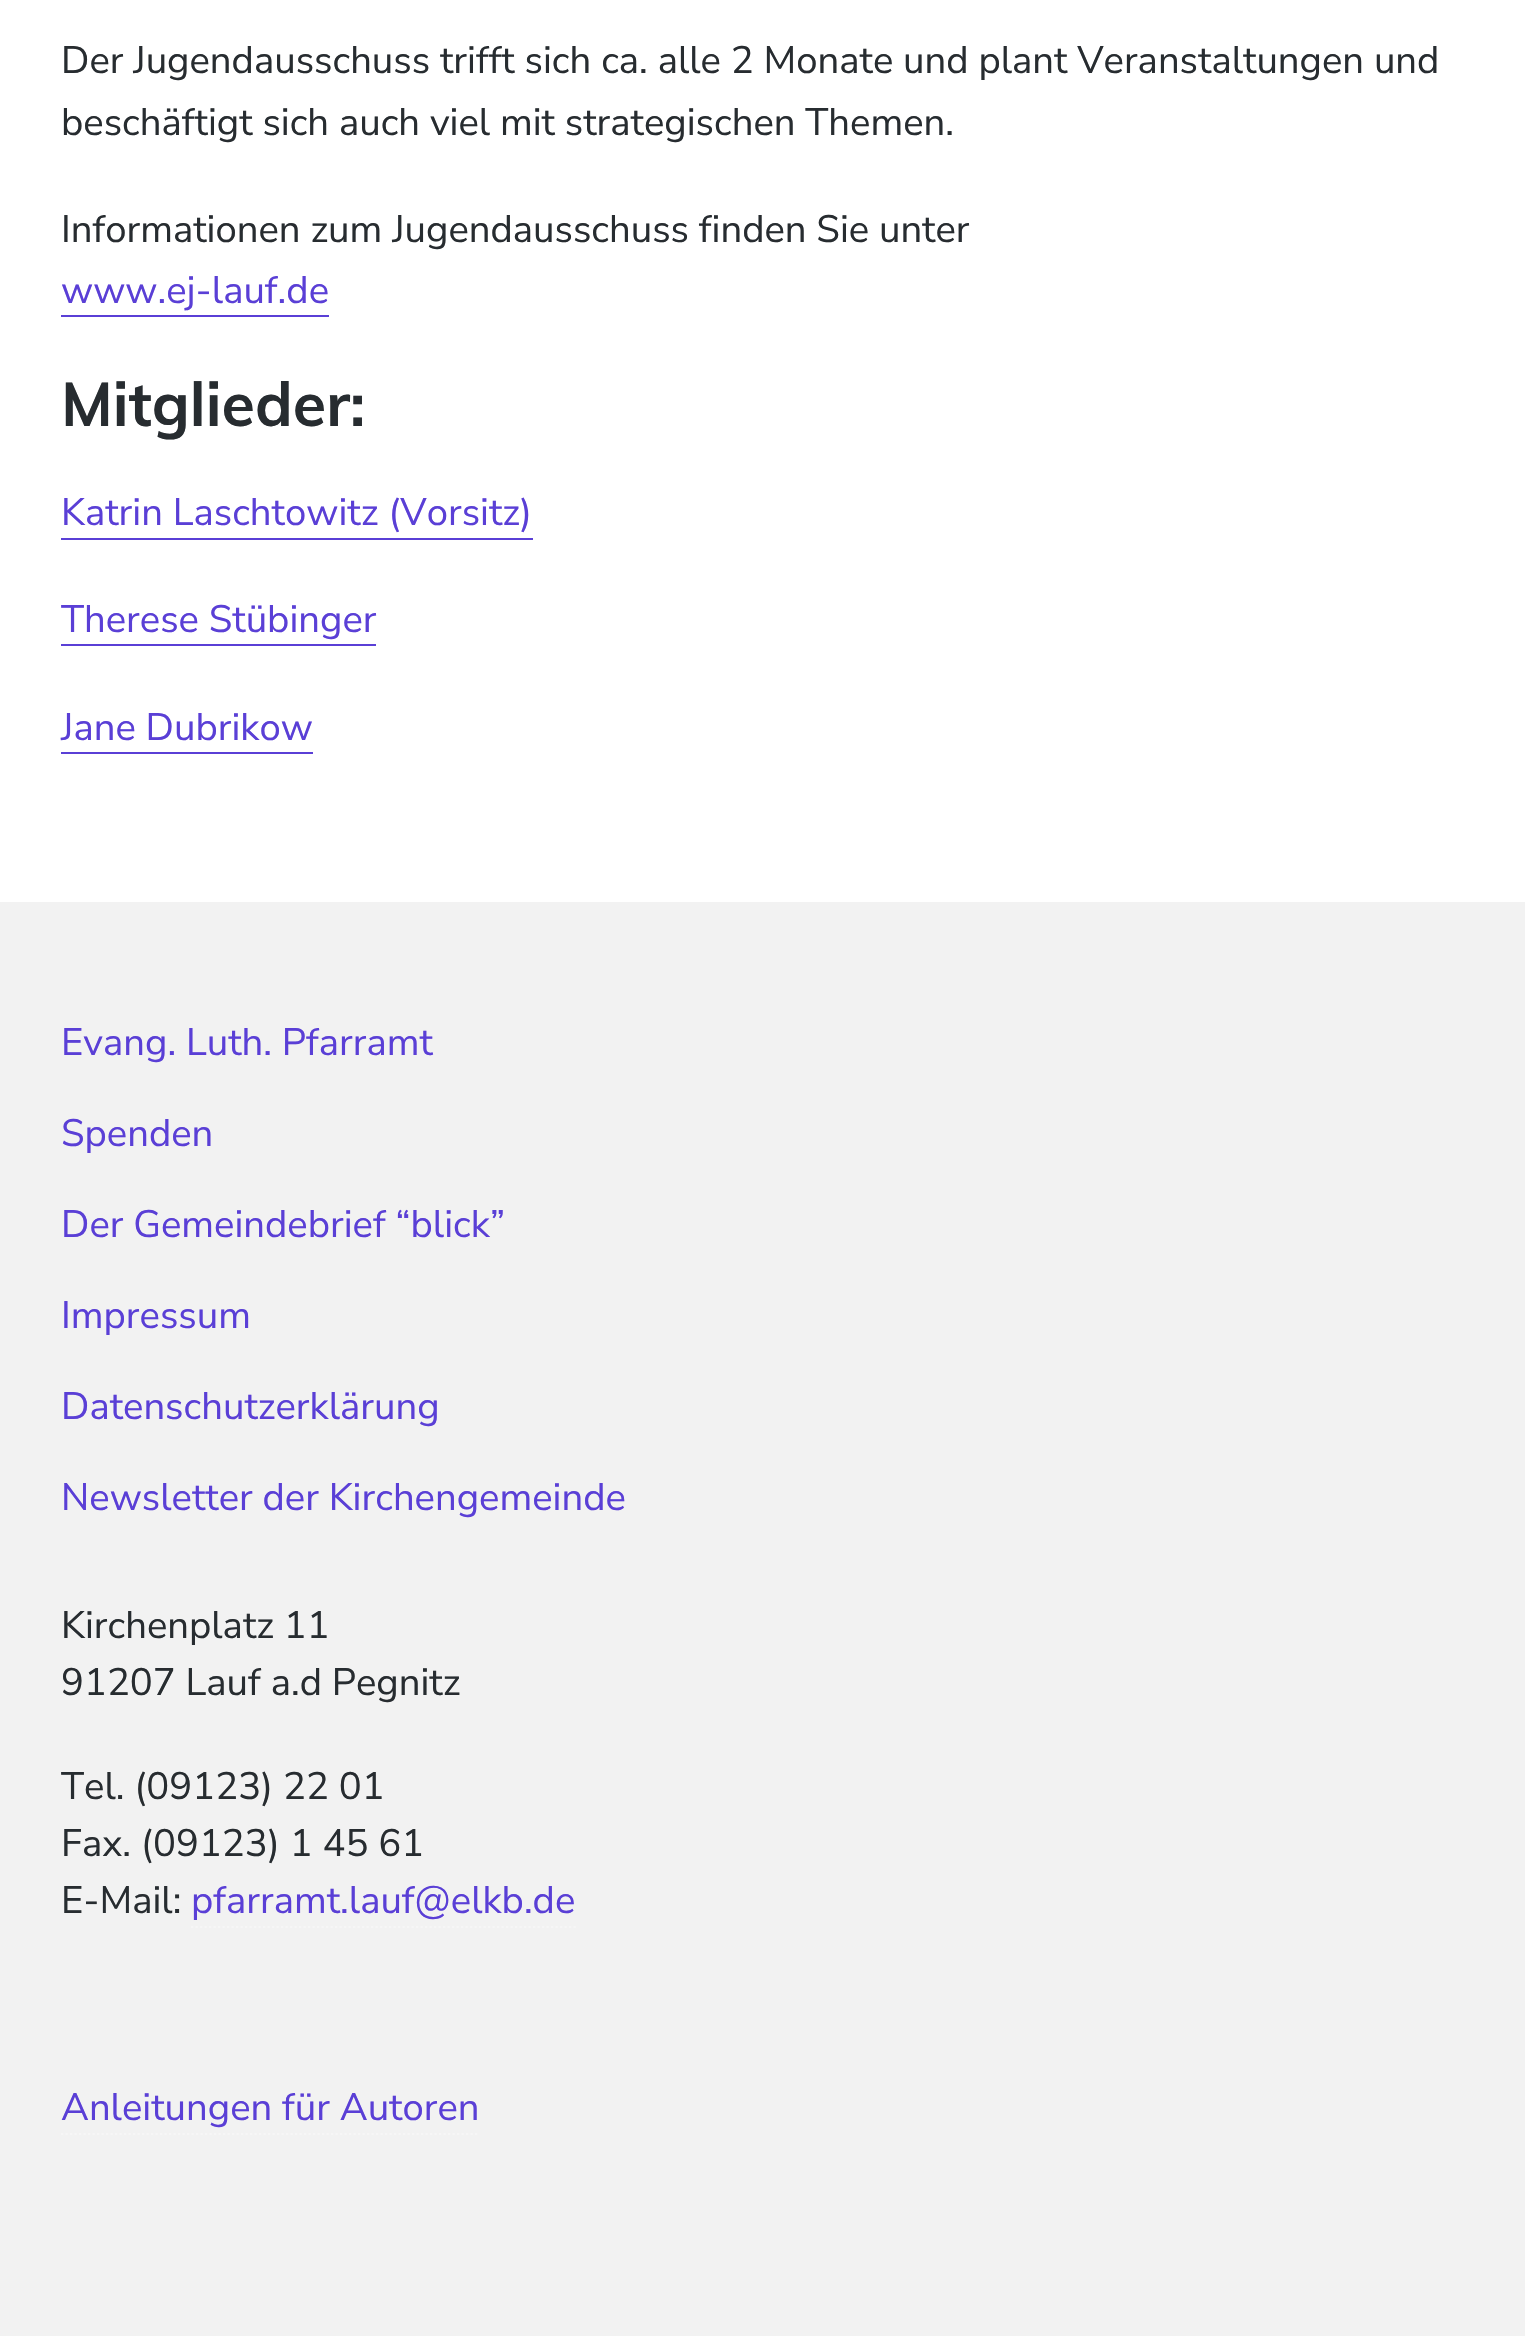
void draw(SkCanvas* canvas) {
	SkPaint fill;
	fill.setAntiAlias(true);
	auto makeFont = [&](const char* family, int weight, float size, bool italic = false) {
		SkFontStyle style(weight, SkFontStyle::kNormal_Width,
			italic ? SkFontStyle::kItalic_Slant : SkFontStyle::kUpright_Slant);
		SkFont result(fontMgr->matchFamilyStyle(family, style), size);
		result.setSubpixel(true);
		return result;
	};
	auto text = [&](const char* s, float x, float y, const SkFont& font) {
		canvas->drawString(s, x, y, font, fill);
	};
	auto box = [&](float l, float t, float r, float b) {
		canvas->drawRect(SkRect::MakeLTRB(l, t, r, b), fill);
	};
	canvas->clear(0xFFFFFFFF);
	fill.setColor(0xFF5A3FD6);
	box(61, 315, 329, 317);
	box(61, 538, 533, 540);
	box(61, 644, 376, 646);
	box(61, 752, 313, 754);
	fill.setColor(0xFFF2F2F2);
	box(0, 902, 1525, 2336);
	fill.setStyle(SkPaint::kStroke_Style);
	fill.setStrokeWidth(2.2f);
	fill.setColor(0xFFF6F6F6);
	fill.setPathEffect(SkDashPathEffect::Make({{2.25f, 2.25f}}, 0));
	canvas->drawPath(SkPathBuilder().moveTo(191, 1927).lineTo(576, 1927).detach(), fill);
	fill.setPathEffect(nullptr);
	fill.setPathEffect(SkDashPathEffect::Make({{2.25f, 2.25f}}, 0));
	canvas->drawPath(SkPathBuilder().moveTo(61, 2134).lineTo(479, 2134).detach(), fill);
	fill.setPathEffect(nullptr);
	auto font1 = makeFont("Nunito Sans", 400, 38.25f);
	fill.setStyle(SkPaint::kFill_Style);
	fill.setColor(0xFF272C30);
	text("Der Jugendausschuss trifft sich ca. alle 2 Monate und plant Veranstaltungen und", 61, 73, font1);
	text("beschäftigt sich auch viel mit strategischen Themen.", 61, 135, font1);
	text("Informationen zum Jugendausschuss finden Sie unter", 61, 242, font1);
	fill.setColor(0xFF5A3FD6);
	text("www.ej-lauf.de", 61, 303, font1);
	auto font2 = makeFont("Muli", 700, 61);
	fill.setColor(0xFF272C30);
	text("Mitglieder:", 61, 426, font2);
	fill.setColor(0xFF5A3FD6);
	text("Katrin Laschtowitz (Vorsitz)", 61, 525, font1);
	text("Therese Stübinger", 61, 632, font1);
	text("Jane Dubrikow", 61, 740, font1);
	text("Evang. Luth. Pfarramt", 61, 1055, font1);
	text("Spenden", 61, 1146, font1);
	text("Der Gemeindebrief “blick”", 61, 1237, font1);
	text("Impressum", 61, 1328, font1);
	text("Datenschutzerklärung", 61, 1419, font1);
	text("Newsletter der Kirchengemeinde", 61, 1510, font1);
	fill.setColor(0xFF272C30);
	text("Kirchenplatz 11", 61, 1638, font1);
	text("91207 Lauf a.d Pegnitz", 61, 1695, font1);
	text("Tel. (09123) 22 01", 61, 1799, font1);
	text("Fax. (09123) 1 45 61", 61, 1856, font1);
	text("E-Mail:", 61, 1913, font1);
	fill.setColor(0xFF5A3FD6);
	text("pfarramt.lauf@elkb.de", 191, 1913, font1);
	text("Anleitungen für Autoren", 61, 2120, font1);
}
